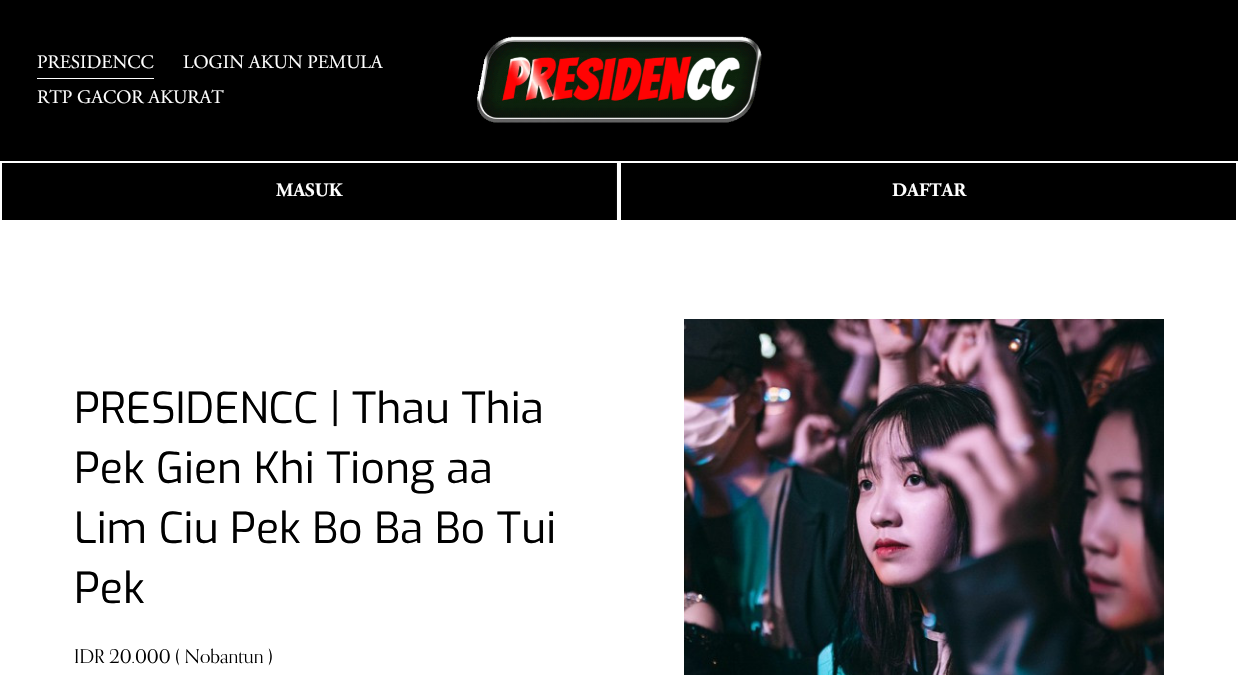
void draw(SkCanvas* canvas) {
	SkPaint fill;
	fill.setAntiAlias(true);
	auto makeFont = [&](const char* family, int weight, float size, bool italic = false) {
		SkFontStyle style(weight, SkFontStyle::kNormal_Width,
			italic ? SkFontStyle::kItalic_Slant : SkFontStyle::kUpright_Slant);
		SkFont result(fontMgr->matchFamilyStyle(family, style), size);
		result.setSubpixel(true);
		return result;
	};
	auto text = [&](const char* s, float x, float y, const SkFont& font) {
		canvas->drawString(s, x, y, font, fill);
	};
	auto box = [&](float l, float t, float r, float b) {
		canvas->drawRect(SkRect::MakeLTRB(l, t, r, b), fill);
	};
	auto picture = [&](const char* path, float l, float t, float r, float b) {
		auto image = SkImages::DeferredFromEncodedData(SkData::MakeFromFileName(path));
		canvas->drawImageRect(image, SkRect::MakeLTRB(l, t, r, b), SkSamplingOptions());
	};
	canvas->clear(0xFFFFFFFF);
	fill.setColor(0xFF000000);
	box(2, 163, 617, 220);
	fill.setColor(0xFFFFFFFF);
	fill.setMaskFilter(SkMaskFilter::MakeBlur(kNormal_SkBlurStyle, 1.5f));
	canvas->drawRect(SkRect::MakeLTRB(619, 161, 1238, 222), fill);
	fill.setMaskFilter(nullptr);
	fill.setColor(0xFF000000);
	box(0, 0, 1238, 161);
	fill.setColor(0xFFFFFFFF);
	box(37, 78, 154, 79);
	picture("image0.png", 477, 36, 762, 123);
	fill.setColor(0xFF000000);
	box(621, 163, 1236, 220);
	picture("image1.png", 684, 319, 1164, 675);
	auto font1 = makeFont("Adobe Garamond", 400, 19);
	fill.setColor(0xFFFFFFFF);
	text("PRESIDENCC", 37, 68, font1);
	text("LOGIN AKUN PEMULA", 183, 68, font1);
	text("RTP GACOR AKURAT", 37, 103, font1);
	auto font2 = makeFont("Adobe Garamond", 700, 19);
	text("MASUK", 276, 196, font2);
	text("DAFTAR", 892, 196, font2);
	auto font3 = makeFont("Exo", 400, 42.75f);
	fill.setColor(0xFF000000);
	text("PRESIDENCC | Thau Thia", 74, 423, font3);
	text("Pek Gien Khi Tiong aa", 74, 483, font3);
	text("Lim Ciu Pek Bo Ba Bo Tui", 74, 543, font3);
	text("Pek", 74, 603, font3);
	auto font4 = makeFont("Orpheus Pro", 400, 19);
	text("IDR 20.000 ( Nobantun )", 74, 663, font4);
}
